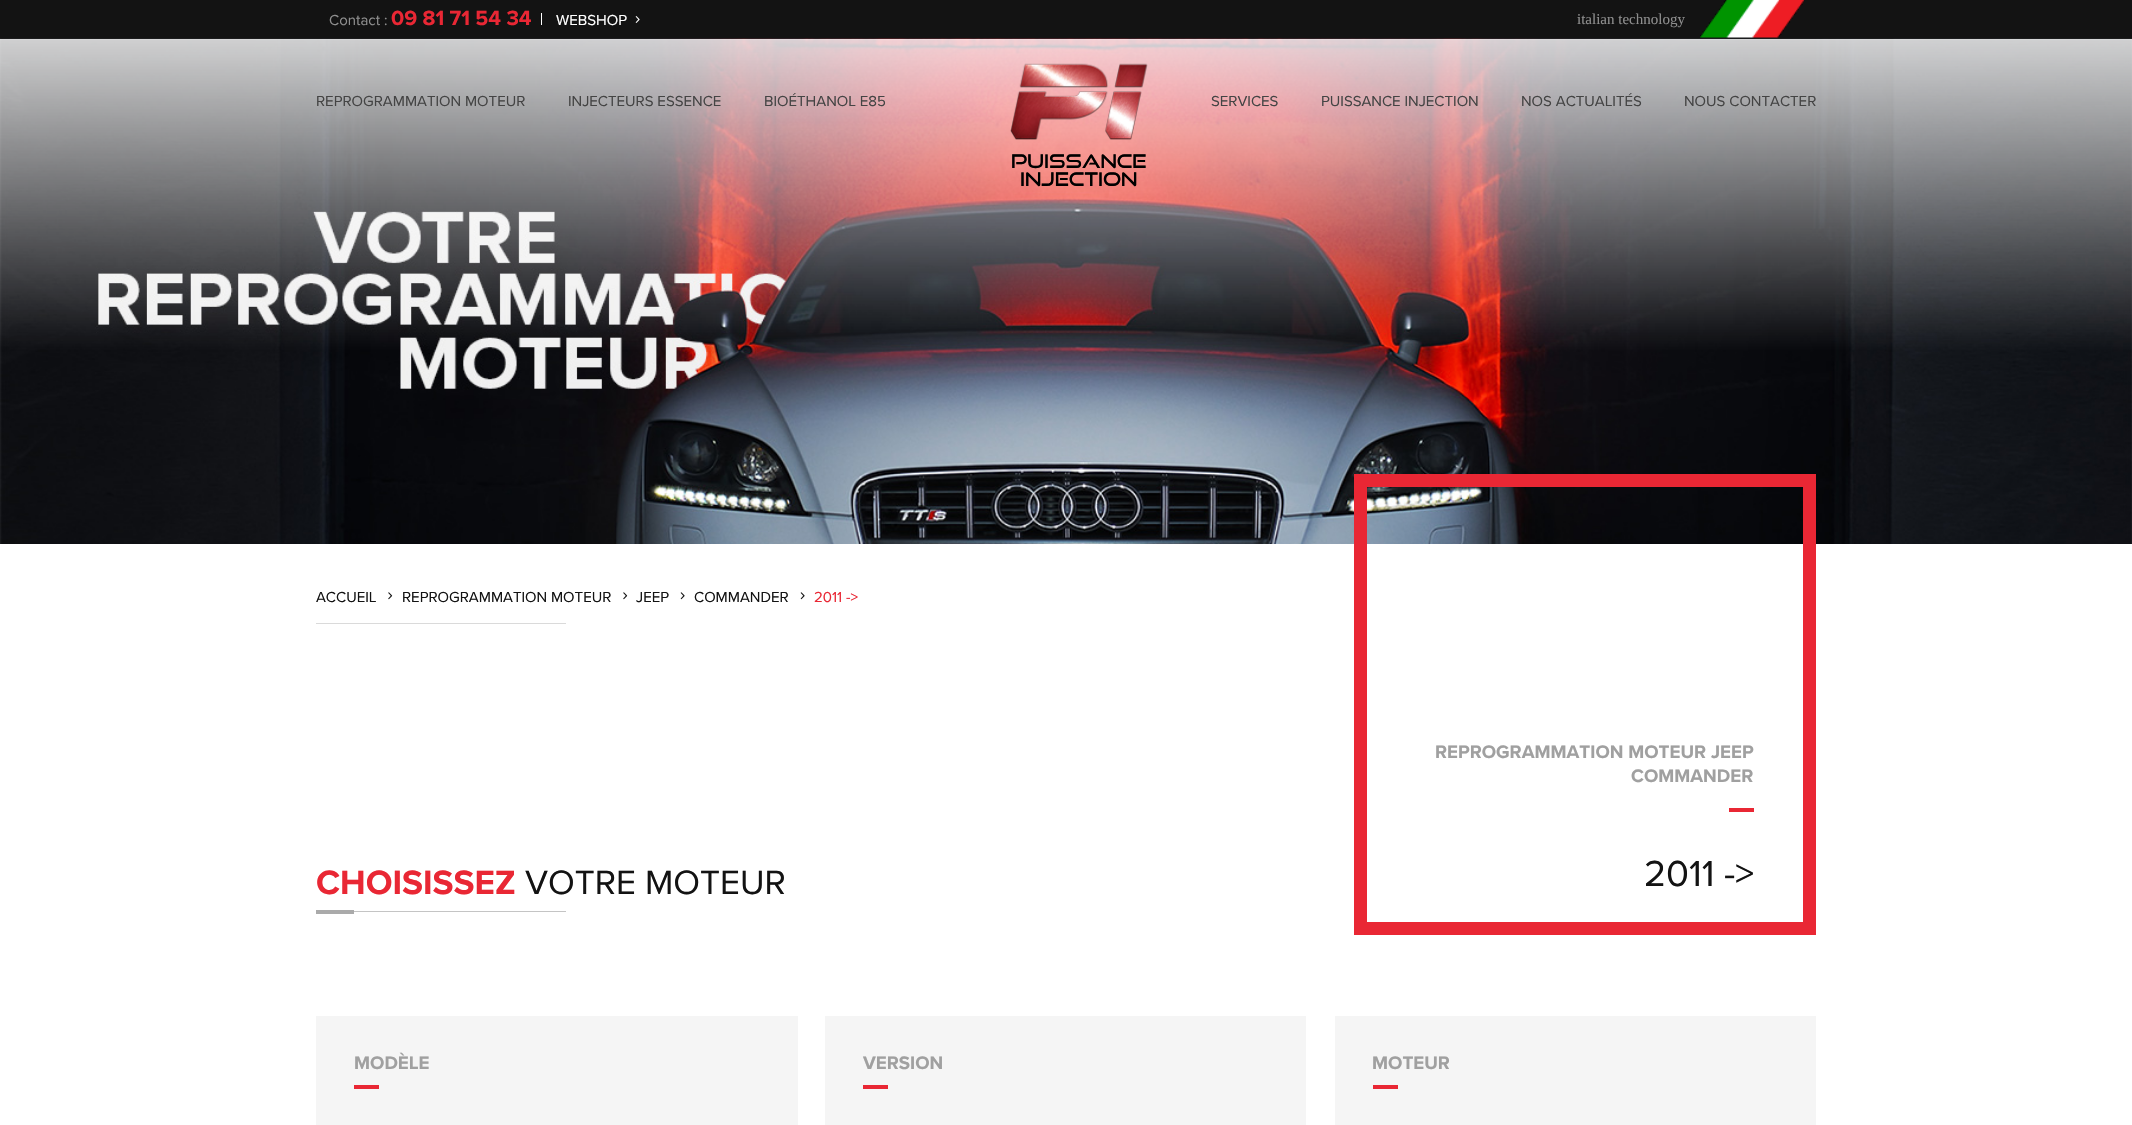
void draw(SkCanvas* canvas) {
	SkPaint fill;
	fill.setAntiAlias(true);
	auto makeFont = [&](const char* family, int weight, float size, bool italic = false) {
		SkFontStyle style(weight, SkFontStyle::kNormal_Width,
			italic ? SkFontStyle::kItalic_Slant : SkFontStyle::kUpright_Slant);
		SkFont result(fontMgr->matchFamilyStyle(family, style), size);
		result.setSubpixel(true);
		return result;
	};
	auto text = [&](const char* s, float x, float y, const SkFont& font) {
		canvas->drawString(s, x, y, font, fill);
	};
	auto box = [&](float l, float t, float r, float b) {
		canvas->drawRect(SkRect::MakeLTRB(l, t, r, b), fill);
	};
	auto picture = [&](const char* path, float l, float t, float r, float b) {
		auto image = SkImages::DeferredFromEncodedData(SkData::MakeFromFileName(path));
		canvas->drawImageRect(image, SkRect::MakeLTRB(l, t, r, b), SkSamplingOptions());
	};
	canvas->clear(0xFFFFFFFF);
	fill.setColor(0xFF131313);
	box(0, 0, 2132, 39);
	fill.setColor(0xFFFFFFFF);
	box(541, 13, 542, 25);
	picture("image0.png", 635, 16, 640, 23);
	picture("image1.png", 1700, 0, 1804, 38);
	picture("image3.png", 0, 38, 2132, 544);
	picture("image2.png", 1010, 63, 1148, 140);
	picture("image4.png", 388, 592, 393, 600);
	picture("image4.png", 623, 592, 628, 600);
	picture("image5.png", 680, 592, 685, 600);
	picture("image5.png", 800, 592, 805, 600);
	fill.setColor(0xFFDADADA);
	box(316, 623, 566, 624);
	fill.setColor(0xFFAAAAAA);
	box(316, 910, 354, 914);
	fill.setColor(0xFFC4C4C4);
	box(354, 911, 566, 912);
	fill.setStyle(SkPaint::kStroke_Style);
	fill.setStrokeWidth(13);
	fill.setColor(0xFFE92734);
	canvas->drawRect(SkRect::MakeLTRB(1360.5f, 480.5f, 1809.5f, 928.5f), fill);
	fill.setStyle(SkPaint::kFill_Style);
	box(1729, 808, 1754, 812);
	fill.setColor(0xFFF5F5F5);
	box(316, 1016, 798, 1125);
	fill.setColor(0xFFE92734);
	box(354, 1085, 379, 1089);
	fill.setColor(0xFFF5F5F5);
	box(825, 1016, 1306, 1125);
	fill.setColor(0xFFE92734);
	box(863, 1085, 888, 1089);
	fill.setColor(0xFFF5F5F5);
	box(1335, 1016, 1816, 1125);
	fill.setColor(0xFFE92734);
	box(1373, 1085, 1398, 1089);
	auto font1 = makeFont("Proxima Nova", 400, 15);
	fill.setColor(0xFF8E8E8E);
	text("Contact :", 329, 25, font1);
	auto font2 = makeFont("Proxima Nova", 700, 21.25f);
	fill.setColor(0xFFE92734);
	text("09 81 71 54 34", 391, 25, font2);
	fill.setColor(0xFFFFFFFF);
	text("WEBSHOP", 556, 25, font1);
	auto font3 = makeFont("Liberation Serif", 400, 15);
	fill.setColor(0xFF8E8E8E);
	text("italian technology", 1577, 24, font3);
	fill.setColor(0xFF444444);
	text("REPROGRAMMATION MOTEUR", 316, 106, font1);
	text("INJECTEURS ESSENCE", 568, 106, font1);
	text("BIOÉTHANOL E85", 764, 106, font1);
	text("SERVICES", 1211, 106, font1);
	text("PUISSANCE INJECTION", 1321, 106, font1);
	text("NOS ACTUALITÉS", 1521, 106, font1);
	text("NOUS CONTACTER", 1684, 106, font1);
	auto font4 = makeFont("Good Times", 400, 18.75f);
	fill.setColor(0xFF000000);
	text("Puissance", 1011, 168, font4);
	text("Injection", 1020, 186, font4);
	fill.setColor(0xFF131313);
	text("ACCUEIL", 316, 602, font1);
	text("REPROGRAMMATION MOTEUR", 402, 602, font1);
	text("JEEP", 636, 602, font1);
	text("COMMANDER", 694, 602, font1);
	fill.setColor(0xFFE92734);
	text("2011 ->", 814, 602, font1);
	auto font5 = makeFont("Proxima Nova", 700, 35);
	text("CHOISISSEZ", 316, 894, font5);
	auto font6 = makeFont("Proxima Nova", 400, 35);
	fill.setColor(0xFF131313);
	text("VOTRE MOTEUR", 525, 894, font6);
	auto font7 = makeFont("Proxima Nova", 700, 18.75f);
	fill.setColor(0xFFA0A0A0);
	text("REPROGRAMMATION MOTEUR JEEP", 1435, 758, font7);
	text("COMMANDER", 1631, 782, font7);
	auto font8 = makeFont("Proxima Nova", 400, 37.5f);
	fill.setColor(0xFF131313);
	text("2011 ->", 1644, 886, font8);
	fill.setColor(0xFFA0A0A0);
	text("MODÈLE", 354, 1069, font7);
	text("VERSION", 863, 1069, font7);
	text("MOTEUR", 1372, 1069, font7);
}
